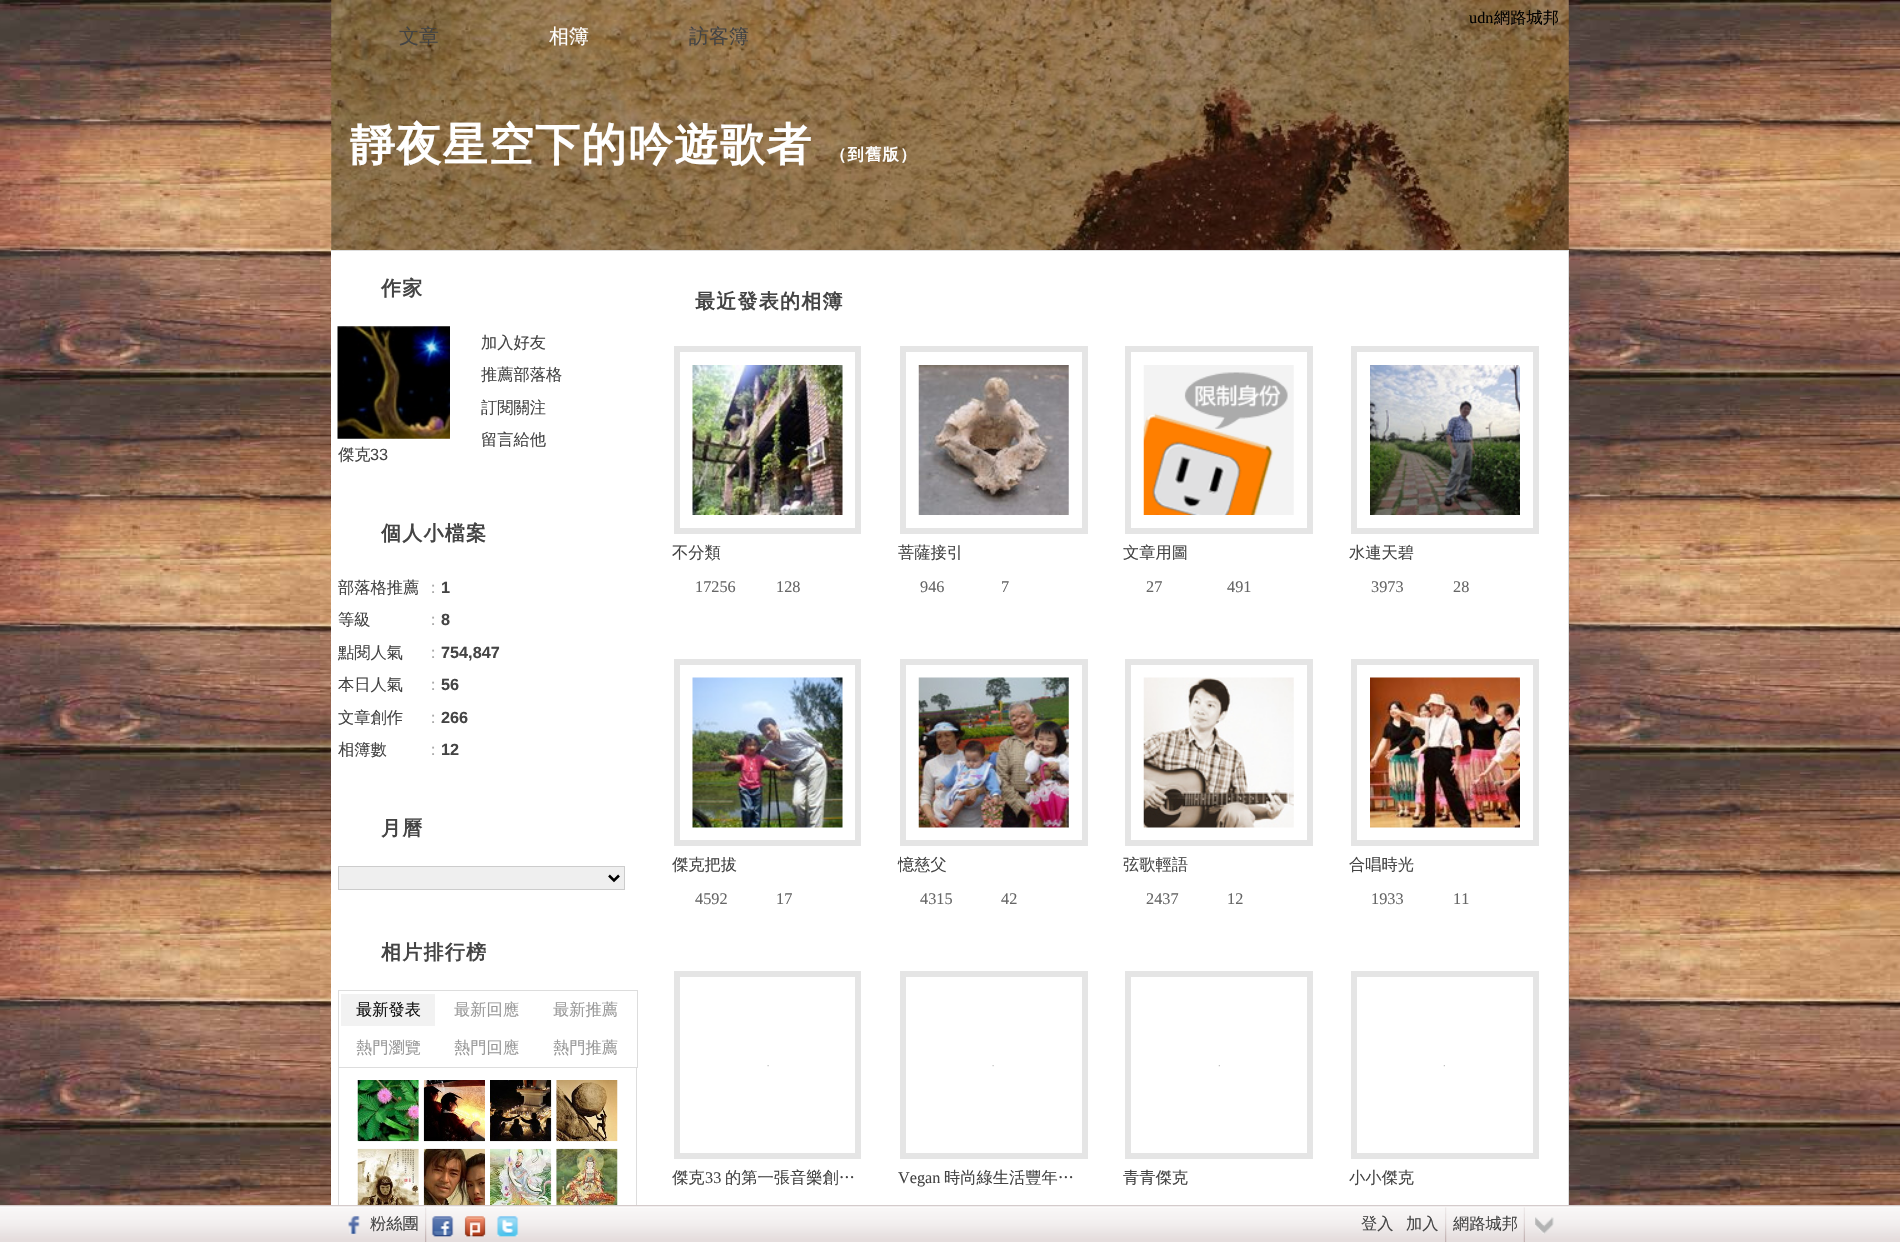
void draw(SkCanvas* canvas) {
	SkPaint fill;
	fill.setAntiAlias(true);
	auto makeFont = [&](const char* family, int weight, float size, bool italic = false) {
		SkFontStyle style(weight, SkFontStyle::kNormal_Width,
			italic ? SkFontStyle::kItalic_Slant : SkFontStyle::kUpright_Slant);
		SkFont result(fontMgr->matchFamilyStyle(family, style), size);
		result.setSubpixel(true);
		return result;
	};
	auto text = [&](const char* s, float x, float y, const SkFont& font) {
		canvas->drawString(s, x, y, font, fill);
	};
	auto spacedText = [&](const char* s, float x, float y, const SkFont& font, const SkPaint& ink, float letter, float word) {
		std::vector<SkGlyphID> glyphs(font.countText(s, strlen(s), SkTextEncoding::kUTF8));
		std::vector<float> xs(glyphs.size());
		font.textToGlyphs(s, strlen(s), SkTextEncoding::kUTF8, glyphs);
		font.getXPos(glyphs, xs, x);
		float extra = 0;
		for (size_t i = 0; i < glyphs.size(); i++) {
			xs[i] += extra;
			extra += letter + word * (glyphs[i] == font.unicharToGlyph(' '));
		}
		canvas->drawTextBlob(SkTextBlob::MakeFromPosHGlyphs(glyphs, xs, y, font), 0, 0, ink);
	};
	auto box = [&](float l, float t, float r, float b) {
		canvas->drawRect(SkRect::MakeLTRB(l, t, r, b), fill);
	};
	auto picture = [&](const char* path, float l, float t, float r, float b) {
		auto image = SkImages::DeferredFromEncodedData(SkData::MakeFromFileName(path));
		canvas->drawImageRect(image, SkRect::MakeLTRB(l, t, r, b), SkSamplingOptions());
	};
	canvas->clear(0xFFFFFFFF);
	picture("image0.png", 0, 0, 1900, 1205);
	picture("image1.png", 331, 0, 1569, 250);
	fill.setColor(0xFFDDDDDD);
	box(331, 250, 1569, 251);
	fill.setColor(0xFFFFFFFF);
	box(331, 251, 1568, 1205);
	picture("image2.png", 337, 326, 450, 439);
	fill.setColor(0xFFEFEFEF);
	canvas->drawRect(SkRect::MakeLTRB(338.5f, 866.5f, 624.5f, 889.5f), fill);
	fill.setStyle(SkPaint::kStroke_Style);
	fill.setStrokeWidth(1);
	fill.setColor(0xFFCCCCCC);
	canvas->drawRect(SkRect::MakeLTRB(338.5f, 866.5f, 624.5f, 889.5f), fill);
	fill.setStrokeWidth(2.5f);
	fill.setColor(0xFF000000);
	canvas->drawPath(SkPathBuilder().moveTo(609, 875.5f).lineTo(614, 880.5f).lineTo(619, 875.5f).detach(), fill);
	fill.setStrokeWidth(1);
	fill.setColor(0xFFDDDDDD);
	canvas->drawRect(SkRect::MakeLTRB(338.5f, 990.5f, 637.5f, 1067.5f), fill);
	fill.setStyle(SkPaint::kFill_Style);
	fill.setColor(0xFFF2F2F2);
	box(341, 994, 435, 1026);
	fill.setColor(0xFFDDDDDD);
	box(636, 1068, 637, 1205);
	box(338, 1068, 339, 1205);
	picture("image3.png", 357, 1080, 419, 1142);
	picture("image4.png", 423, 1080, 485, 1142);
	picture("image5.png", 490, 1080, 552, 1142);
	picture("image6.png", 556, 1080, 618, 1142);
	picture("image7.png", 357, 1148, 419, 1205);
	picture("image8.png", 423, 1148, 485, 1205);
	picture("image9.png", 490, 1148, 552, 1205);
	picture("image10.png", 556, 1148, 618, 1205);
	box(1568, 251, 1569, 1205);
	fill.setStyle(SkPaint::kStroke_Style);
	fill.setStrokeWidth(6);
	fill.setColor(0xFFE5E5E5);
	canvas->drawRect(SkRect::MakeLTRB(677, 349, 858, 531), fill);
	picture("image11.png", 692, 365, 843, 515);
	canvas->drawRect(SkRect::MakeLTRB(903, 349, 1085, 531), fill);
	picture("image12.png", 918, 365, 1069, 515);
	canvas->drawRect(SkRect::MakeLTRB(1128, 349, 1310, 531), fill);
	picture("image13.png", 1143, 365, 1294, 515);
	canvas->drawRect(SkRect::MakeLTRB(1354, 349, 1536, 531), fill);
	picture("image14.png", 1370, 365, 1520, 515);
	canvas->drawRect(SkRect::MakeLTRB(677, 662, 858, 843), fill);
	picture("image15.png", 692, 677, 843, 828);
	canvas->drawRect(SkRect::MakeLTRB(903, 662, 1085, 843), fill);
	picture("image16.png", 918, 677, 1069, 828);
	canvas->drawRect(SkRect::MakeLTRB(1128, 662, 1310, 843), fill);
	picture("image17.png", 1143, 677, 1294, 828);
	canvas->drawRect(SkRect::MakeLTRB(1354, 662, 1536, 843), fill);
	picture("image18.png", 1370, 677, 1520, 828);
	canvas->drawRect(SkRect::MakeLTRB(677, 974, 858, 1156), fill);
	picture("image19.png", 767, 1065, 769, 1067);
	canvas->drawRect(SkRect::MakeLTRB(903, 974, 1085, 1156), fill);
	picture("image19.png", 992, 1065, 994, 1067);
	canvas->drawRect(SkRect::MakeLTRB(1128, 974, 1310, 1156), fill);
	picture("image20.png", 1218, 1065, 1220, 1067);
	canvas->drawRect(SkRect::MakeLTRB(1354, 974, 1536, 1156), fill);
	picture("image20.png", 1443, 1065, 1445, 1067);
	picture("image21.png", 0, 1205, 1900, 1242);
	picture("image22.png", 348, 1216, 360, 1234);
	picture("image23.png", 425, 1207, 427, 1242);
	picture("image24.png", 431, 1216, 454, 1237);
	picture("image25.png", 464, 1216, 486, 1237);
	picture("image26.png", 496, 1216, 519, 1237);
	picture("image23.png", 1445, 1207, 1447, 1242);
	picture("image27.png", 1523, 1207, 1525, 1242);
	picture("image28.png", 1535, 1217, 1554, 1234);
	auto font1 = makeFont("Liberation Serif", 400, 16.25f);
	fill.setStyle(SkPaint::kFill_Style);
	fill.setColor(0xFF000000);
	text("udn", 1469, 23, font1);
	auto font2 = makeFont("WenQuanYi Zen Hei", 500, 16.25f);
	text("網路城邦", 1494, 23, font2);
	auto font3 = makeFont("WenQuanYi Zen Hei", 500, 20);
	fill.setColor(0xFF444444);
	text("文章", 399, 43, font3);
	fill.setColor(0xFFFFFFFF);
	text("相簿", 549, 43, font3);
	fill.setColor(0xFF444444);
	text("訪客簿", 689, 43, font3);
	auto font4 = makeFont("WenQuanYi Zen Hei", 700, 45);
	fill.setColor(0xFFFFFFFF);
	spacedText("靜夜星空下的吟遊歌者", 350, 160, font4, fill, 1.25f, 0);
	auto font5 = makeFont("WenQuanYi Zen Hei", 700, 16.25f);
	spacedText("（到舊版）", 830, 160, font5, fill, 1.25f, 0);
	auto font6 = makeFont("WenQuanYi Zen Hei", 700, 20);
	fill.setColor(0xFF444444);
	spacedText("作家", 381, 295, font6, fill, 1.25f, 0);
	text("加入好友", 481, 348, font2);
	text("推薦部落格", 481, 380, font2);
	text("訂閱關注", 481, 413, font2);
	text("留言給他", 481, 445, font2);
	text("傑克", 338, 460, font2);
	auto font7 = makeFont("Liberation Sans", 400, 16.25f);
	text("33", 370, 460, font7);
	spacedText("個人小檔案", 381, 540, font6, fill, 1.25f, 0);
	text("部落格推薦", 338, 593, font2);
	fill.setColor(0xFFAAAAAA);
	text("：", 425, 593, font2);
	auto font8 = makeFont("Liberation Sans", 700, 16.25f);
	fill.setColor(0xFF444444);
	text("1", 441, 593, font8);
	text("等級", 338, 625, font2);
	fill.setColor(0xFFAAAAAA);
	text("：", 425, 625, font2);
	fill.setColor(0xFF444444);
	text("8", 441, 625, font8);
	text("點閱人氣", 338, 658, font2);
	fill.setColor(0xFFAAAAAA);
	text("：", 425, 658, font2);
	fill.setColor(0xFF444444);
	text("754,847", 441, 658, font8);
	text("本日人氣", 338, 690, font2);
	fill.setColor(0xFFAAAAAA);
	text("：", 425, 690, font2);
	fill.setColor(0xFF444444);
	text("56", 441, 690, font8);
	text("文章創作", 338, 723, font2);
	fill.setColor(0xFFAAAAAA);
	text("：", 425, 723, font2);
	fill.setColor(0xFF444444);
	text("266", 441, 723, font8);
	text("相簿數", 338, 755, font2);
	fill.setColor(0xFFAAAAAA);
	text("：", 425, 755, font2);
	fill.setColor(0xFF444444);
	text("12", 441, 755, font8);
	spacedText("月曆", 381, 835, font6, fill, 1.25f, 0);
	spacedText("相片排行榜", 381, 959, font6, fill, 1.25f, 0);
	fill.setColor(0xFF111111);
	text("最新發表", 356, 1015, font2);
	fill.setColor(0xFF999999);
	text("最新回應", 454, 1015, font2);
	text("最新推薦", 553, 1015, font2);
	text("熱門瀏覽", 356, 1053, font2);
	text("熱門回應", 454, 1053, font2);
	text("熱門推薦", 553, 1053, font2);
	fill.setColor(0xFF444444);
	spacedText("最近發表的相簿", 695, 308, font6, fill, 1.25f, 0);
	text("不分類", 672, 558, font2);
	fill.setColor(0xFF666666);
	text("17256", 695, 592, font1);
	text("128", 776, 592, font1);
	fill.setColor(0xFF444444);
	text("菩薩接引", 898, 558, font2);
	fill.setColor(0xFF666666);
	text("946", 920, 592, font1);
	text("7", 1001, 592, font1);
	fill.setColor(0xFF444444);
	text("文章用圖", 1123, 558, font2);
	fill.setColor(0xFF666666);
	text("27", 1146, 592, font1);
	text("491", 1227, 592, font1);
	fill.setColor(0xFF444444);
	text("水連天碧", 1349, 558, font2);
	fill.setColor(0xFF666666);
	text("3973", 1371, 592, font1);
	text("28", 1453, 592, font1);
	fill.setColor(0xFF444444);
	text("傑克把拔", 672, 870, font2);
	fill.setColor(0xFF666666);
	text("4592", 695, 904, font1);
	text("17", 776, 904, font1);
	fill.setColor(0xFF444444);
	text("憶慈父", 898, 870, font2);
	fill.setColor(0xFF666666);
	text("4315", 920, 904, font1);
	text("42", 1001, 904, font1);
	fill.setColor(0xFF444444);
	text("弦歌輕語", 1123, 870, font2);
	fill.setColor(0xFF666666);
	text("2437", 1146, 904, font1);
	text("12", 1227, 904, font1);
	fill.setColor(0xFF444444);
	text("合唱時光", 1349, 870, font2);
	fill.setColor(0xFF666666);
	text("1933", 1371, 904, font1);
	text("11", 1453, 904, font1);
	fill.setColor(0xFF444444);
	text("傑克", 672, 1183, font2);
	text("33", 705, 1183, font1);
	text("的第一張音樂創…", 725, 1183, font2);
	text("Vegan", 898, 1183, font1);
	text("時尚綠生活豐年…", 944, 1183, font2);
	text("青青傑克", 1123, 1183, font2);
	text("小小傑克", 1349, 1183, font2);
	text("粉絲團", 370, 1229, font2);
	text("登入", 1361, 1229, font2);
	text("加入", 1406, 1229, font2);
	text("網路城邦", 1453, 1229, font2);
}
